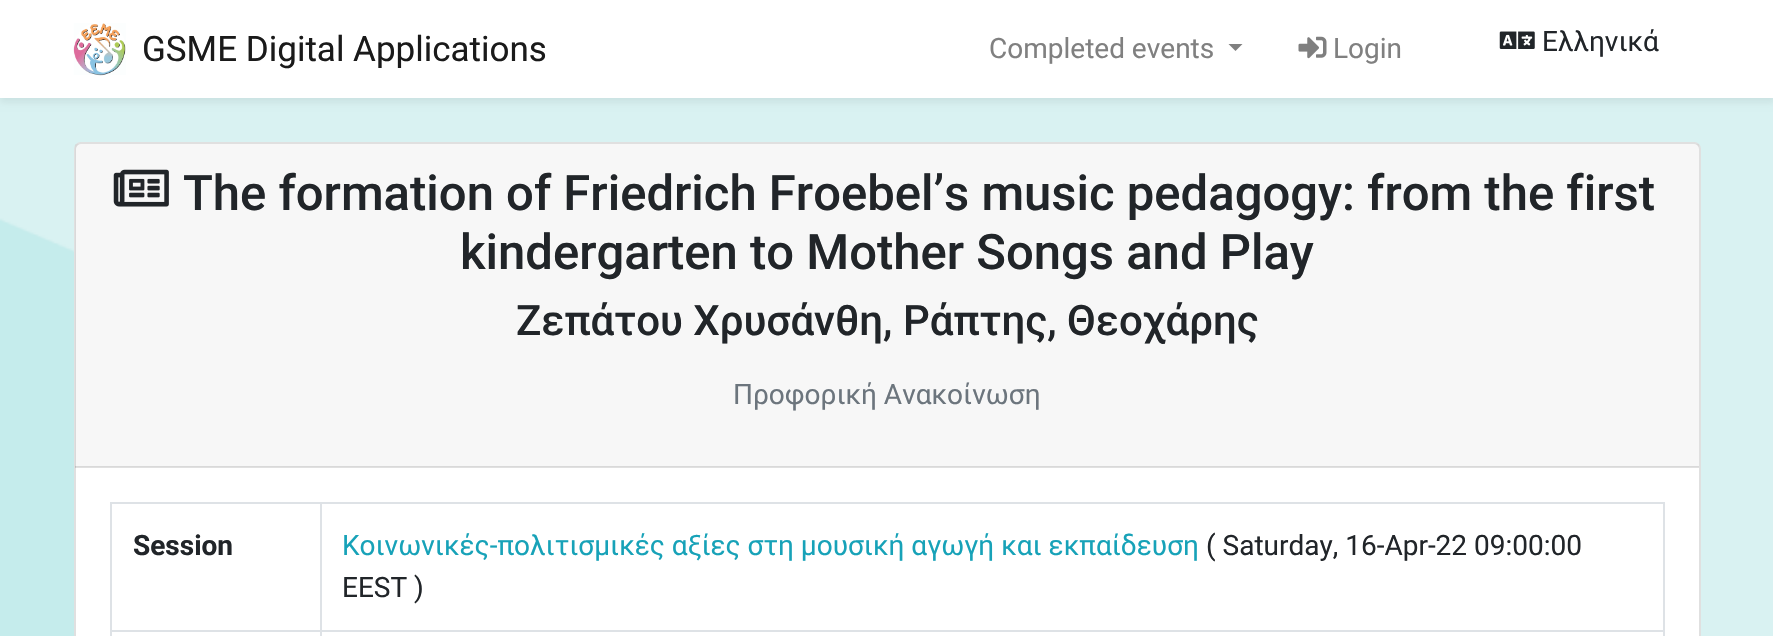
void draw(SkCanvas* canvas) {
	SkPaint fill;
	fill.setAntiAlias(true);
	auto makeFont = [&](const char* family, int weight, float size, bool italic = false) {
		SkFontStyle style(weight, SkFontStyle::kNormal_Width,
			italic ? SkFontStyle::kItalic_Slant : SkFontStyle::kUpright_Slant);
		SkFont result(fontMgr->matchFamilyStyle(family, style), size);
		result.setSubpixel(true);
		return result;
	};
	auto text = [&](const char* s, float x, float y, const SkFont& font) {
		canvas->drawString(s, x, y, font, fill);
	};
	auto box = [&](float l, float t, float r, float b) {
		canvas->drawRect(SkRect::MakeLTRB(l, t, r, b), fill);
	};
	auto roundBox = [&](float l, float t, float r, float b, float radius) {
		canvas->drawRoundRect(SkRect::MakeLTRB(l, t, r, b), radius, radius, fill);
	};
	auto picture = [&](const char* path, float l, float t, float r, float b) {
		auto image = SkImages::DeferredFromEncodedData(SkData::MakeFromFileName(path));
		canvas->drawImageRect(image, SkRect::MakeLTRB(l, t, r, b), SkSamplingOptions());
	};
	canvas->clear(0xFFFFFFFF);
	picture("image0.png", 0, 98, 1773, 636);
	fill.setColor(0x12000000);
	fill.setMaskFilter(SkMaskFilter::MakeBlur(kNormal_SkBlurStyle, 3.5f));
	canvas->drawRect(SkRect::MakeLTRB(0, 4, 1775, 102), fill);
	fill.setMaskFilter(nullptr);
	fill.setColor(0xFFFFFFFF);
	box(0, 0, 1773, 98);
	picture("image1.png", 73, 23, 126, 76);
	fill.setColor(0xFF808080);
	canvas->drawPath(SkPathBuilder().moveTo(1228.5f, 44).lineTo(1242.5f, 44).lineTo(1235.5f, 51).close().detach(), fill);
	picture("image2.png", 1298, 36, 1327, 59);
	picture("image3.png", 1499, 31, 1535, 49);
	fill.setColor(0xFFFFFFFF);
	roundBox(74, 142, 1701, 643, 7);
	fill.setStyle(SkPaint::kStroke_Style);
	fill.setStrokeWidth(2);
	fill.setColor(0x1F000000);
	canvas->drawRoundRect(SkRect::MakeLTRB(75, 143, 1700, 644), 6, 6, fill);
	fill.setStyle(SkPaint::kFill_Style);
	fill.setColor(0x08000000);
	box(75, 144, 1699, 467);
	fill.setColor(0x1F000000);
	box(75, 466, 1699, 468);
	picture("image4.png", 113, 169, 169, 207);
	fill.setColor(0xFFDEE2E6);
	box(110, 502, 1664, 504);
	box(1663, 502, 1665, 636);
	box(110, 502, 112, 636);
	box(320, 630, 1664, 632);
	box(320, 630, 322, 636);
	box(110, 630, 322, 632);
	box(320, 502, 322, 632);
	auto font1 = makeFont("Roboto", 400, 35);
	fill.setColor(0xFF1A1A1A);
	text("GSME Digital Applications", 142, 61, font1);
	auto font2 = makeFont("Roboto", 400, 28);
	fill.setColor(0xFF808080);
	text("Completed events", 989, 58, font2);
	text("Login", 1333, 58, font2);
	fill.setColor(0xFF212529);
	text("Ελληνικά", 1542, 51, font2);
	auto font3 = makeFont("Roboto", 500, 49);
	text("The formation of Friedrich Froebel’s music pedagogy: from the first", 183, 210, font3);
	text("kindergarten to Mother Songs and Play", 460, 269, font3);
	auto font4 = makeFont("Roboto", 500, 42);
	text("Ζεπάτου Χρυσάνθη, Ράπτης, Θεοχάρης", 516, 335, font4);
	fill.setColor(0xFF6C757D);
	text("Προφορική Ανακοίνωση", 733, 404, font2);
	auto font5 = makeFont("Roboto", 700, 28);
	fill.setColor(0xFF212529);
	text("Session", 133, 555, font5);
	fill.setColor(0xFF17A2B8);
	text("Κοινωνικές-πολιτισμικές αξίες στη μουσική αγωγή και εκπαίδευση", 342, 555, font2);
	fill.setColor(0xFF212529);
	text("( Saturday, 16-Apr-22 09:00:00", 1206, 555, font2);
	text("EEST )", 342, 597, font2);
}
